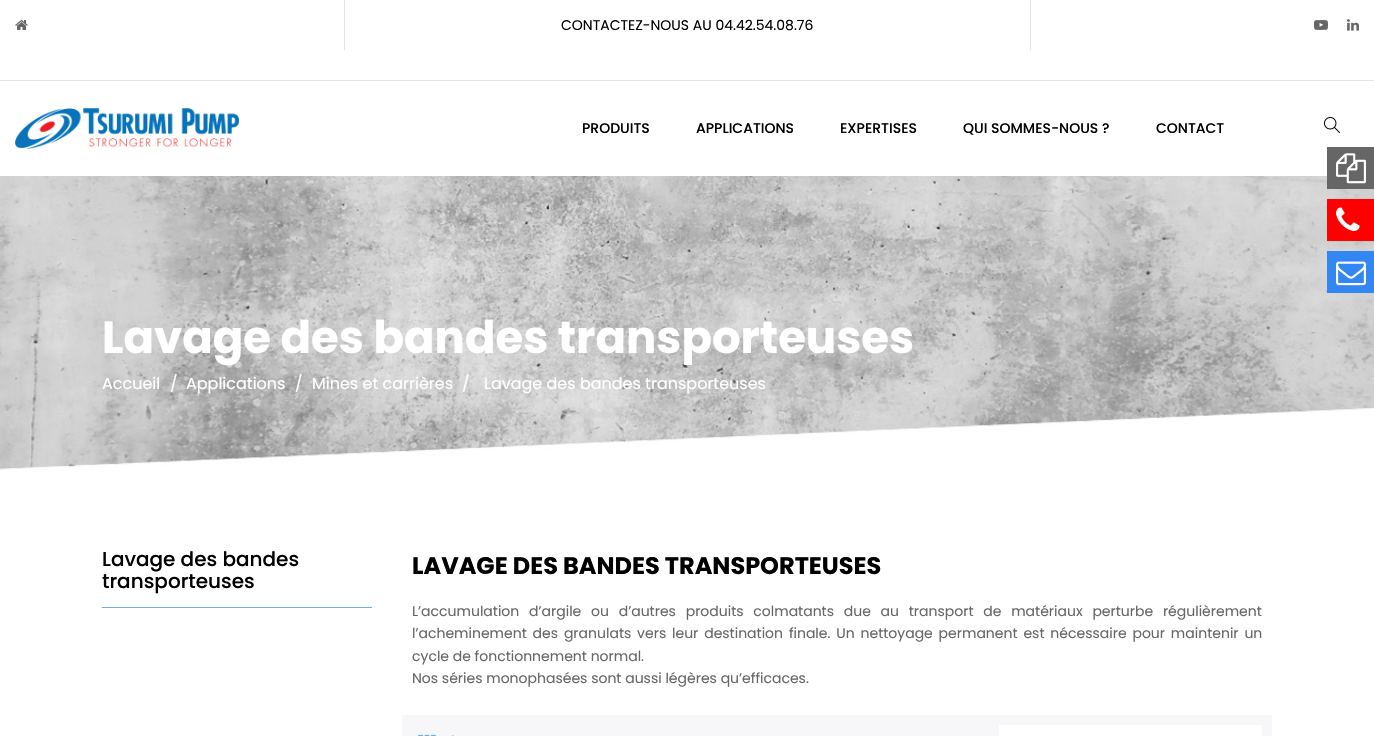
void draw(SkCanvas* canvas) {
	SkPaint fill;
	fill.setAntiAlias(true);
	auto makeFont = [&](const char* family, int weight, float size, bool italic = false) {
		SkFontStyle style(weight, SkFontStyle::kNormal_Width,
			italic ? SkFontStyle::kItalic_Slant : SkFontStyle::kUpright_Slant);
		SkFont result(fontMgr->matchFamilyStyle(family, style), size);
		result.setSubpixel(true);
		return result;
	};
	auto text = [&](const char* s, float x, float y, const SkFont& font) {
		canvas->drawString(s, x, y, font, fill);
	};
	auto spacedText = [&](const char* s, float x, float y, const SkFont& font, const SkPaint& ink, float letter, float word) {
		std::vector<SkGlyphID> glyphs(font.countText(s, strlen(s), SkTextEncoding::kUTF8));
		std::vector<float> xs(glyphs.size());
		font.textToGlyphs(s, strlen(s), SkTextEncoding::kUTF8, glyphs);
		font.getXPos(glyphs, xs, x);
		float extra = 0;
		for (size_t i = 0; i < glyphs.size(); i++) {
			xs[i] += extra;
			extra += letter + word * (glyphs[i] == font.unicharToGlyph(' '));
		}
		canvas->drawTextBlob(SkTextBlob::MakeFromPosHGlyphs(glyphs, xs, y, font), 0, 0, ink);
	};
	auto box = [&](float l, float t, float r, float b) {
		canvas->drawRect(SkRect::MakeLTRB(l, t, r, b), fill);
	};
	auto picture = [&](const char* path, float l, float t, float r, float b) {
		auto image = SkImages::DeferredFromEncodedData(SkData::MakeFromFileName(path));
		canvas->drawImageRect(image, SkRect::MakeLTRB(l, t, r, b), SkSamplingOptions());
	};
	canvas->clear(0xFFFFFFFF);
	fill.setColor(0xFFE5E5E5);
	box(0, 80, 1374, 81);
	picture("image0.png", 15, 20, 28, 30);
	box(1030, 0, 1031, 50);
	box(344, 0, 345, 50);
	picture("image1.png", 1314, 20, 1328, 30);
	picture("image2.png", 1347, 19, 1359, 31);
	picture("image3.png", 15, 108, 239, 149);
	picture("image4.png", 1324, 117, 1340, 133);
	picture("image8.png", 0, 176, 1374, 533);
	fill.setColor(0xFF666666);
	box(1327, 147, 1374, 189);
	picture("image5.png", 1336, 153, 1366, 184);
	fill.setColor(0xFFFF0000);
	box(1327, 199, 1374, 241);
	picture("image6.png", 1336, 207, 1360, 231);
	fill.setColor(0xFF3387F2);
	box(1327, 251, 1374, 293);
	picture("image7.png", 1336, 261, 1366, 286);
	fill.setColor(0xFF6AAFE6);
	box(102, 607, 372, 608);
	fill.setColor(0xFFF7F7F9);
	box(402, 715, 1272, 736);
	picture("image9.png", 418, 734, 436, 736);
	picture("image10.png", 452, 735, 454, 736);
	fill.setColor(0xFFFFFFFF);
	box(999, 725, 1262, 736);
	auto font1 = makeFont("Poppins", 400, 14);
	fill.setColor(0xFF000000);
	text("CONTACTEZ-NOUS AU 04.42.54.08.76", 561, 30, font1);
	auto font2 = makeFont("Poppins", 500, 14);
	text("PRODUITS", 582, 133, font2);
	text("APPLICATIONS", 696, 133, font2);
	text("EXPERTISES", 840, 133, font2);
	text("QUI SOMMES-NOUS ?", 963, 133, font2);
	text("CONTACT", 1156, 133, font2);
	auto font3 = makeFont("Poppins", 700, 45);
	fill.setColor(0xFFFFFFFF);
	text("Lavage des bandes transporteuses", 102, 353, font3);
	auto font4 = makeFont("Poppins", 400, 16);
	text("Accueil", 102, 389, font4);
	text("/", 170, 389, font4);
	text("Applications", 186, 389, font4);
	text("/", 295, 389, font4);
	text("Mines et carrières", 312, 389, font4);
	text("/", 462, 389, font4);
	text("Lavage des bandes transporteuses", 484, 389, font4);
	auto font5 = makeFont("Poppins", 500, 20);
	fill.setColor(0xFF000000);
	text("Lavage des bandes", 102, 566, font5);
	text("transporteuses", 102, 588, font5);
	auto font6 = makeFont("Poppins", 700, 24);
	text("LAVAGE DES BANDES TRANSPORTEUSES", 412, 574, font6);
	fill.setColor(0xFF666666);
	spacedText("L’accumulation d’argile ou d’autres produits colmatants due au transport de matériaux perturbe régulièrement", 412, 616, font1, fill, 0, 6);
	spacedText("l’acheminement des granulats vers leur destination finale. Un nettoyage permanent est nécessaire pour maintenir un", 412, 638, font1, fill, 0, 2.1f);
	text("cycle de fonctionnement normal.", 412, 661, font1);
	text("Nos séries monophasées sont aussi légères qu’efficaces.", 412, 683, font1);
}
